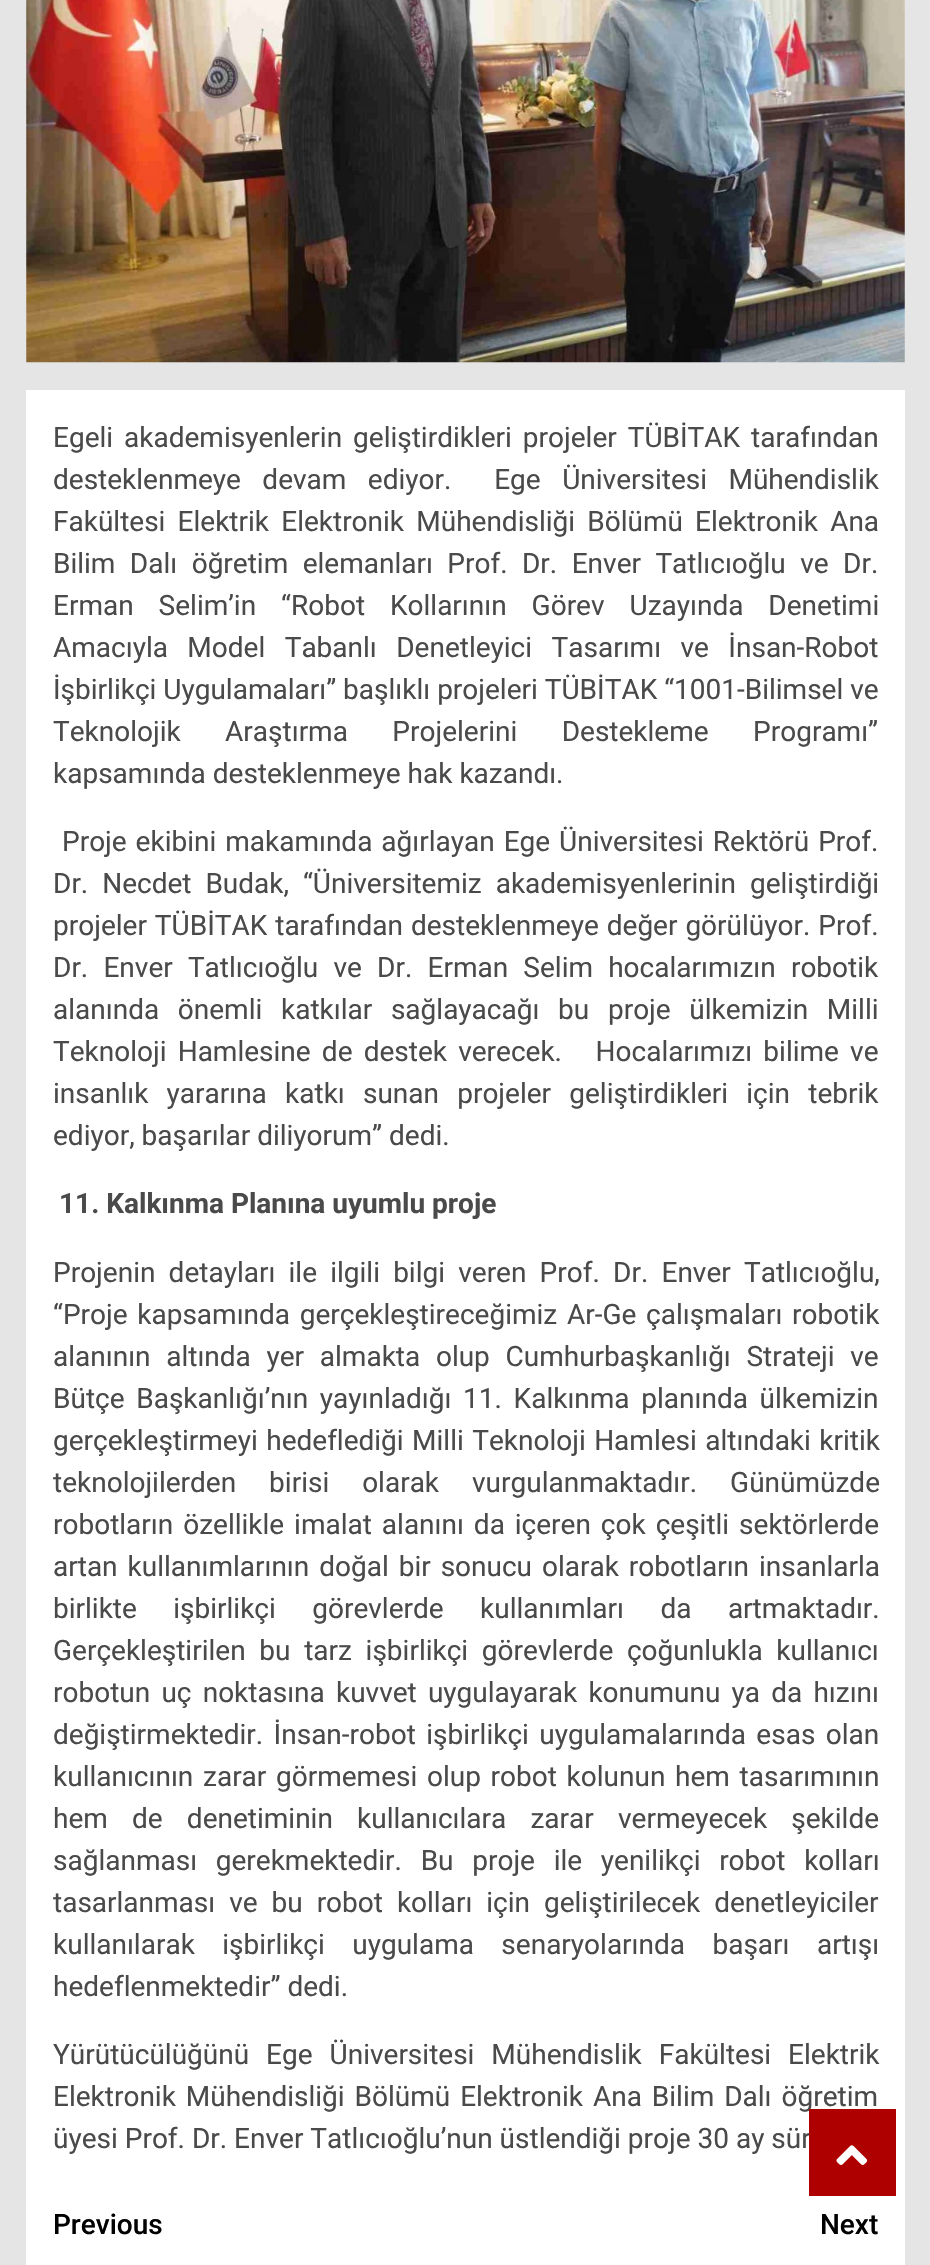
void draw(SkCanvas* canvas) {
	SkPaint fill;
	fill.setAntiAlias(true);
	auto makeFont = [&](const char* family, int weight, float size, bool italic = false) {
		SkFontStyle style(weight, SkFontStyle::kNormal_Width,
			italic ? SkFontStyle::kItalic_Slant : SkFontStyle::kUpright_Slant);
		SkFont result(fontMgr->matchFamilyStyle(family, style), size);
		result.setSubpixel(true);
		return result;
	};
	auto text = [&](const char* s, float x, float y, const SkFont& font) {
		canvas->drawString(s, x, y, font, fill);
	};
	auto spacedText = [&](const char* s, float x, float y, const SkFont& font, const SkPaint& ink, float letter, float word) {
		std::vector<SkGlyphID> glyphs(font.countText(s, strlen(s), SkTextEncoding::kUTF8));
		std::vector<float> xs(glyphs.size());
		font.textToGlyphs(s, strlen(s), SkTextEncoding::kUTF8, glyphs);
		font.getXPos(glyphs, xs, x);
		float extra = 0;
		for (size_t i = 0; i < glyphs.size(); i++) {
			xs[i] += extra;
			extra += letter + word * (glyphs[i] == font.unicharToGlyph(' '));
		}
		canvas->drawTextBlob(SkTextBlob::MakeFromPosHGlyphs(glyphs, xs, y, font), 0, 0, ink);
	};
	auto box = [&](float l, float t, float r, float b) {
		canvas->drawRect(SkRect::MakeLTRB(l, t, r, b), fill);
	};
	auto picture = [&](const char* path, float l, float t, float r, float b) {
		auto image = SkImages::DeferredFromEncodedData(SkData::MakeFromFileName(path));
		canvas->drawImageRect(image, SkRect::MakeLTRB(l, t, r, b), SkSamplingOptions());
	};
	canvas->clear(0xFFE5E5E5);
	picture("image0.png", 26, 0, 905, 363);
	fill.setColor(0xFFFFFFFF);
	box(26, 390, 905, 2265);
	auto font1 = makeFont("Roboto", 400, 28);
	fill.setColor(0xFF4A4A4A);
	spacedText("Egeli akademisyenlerin geliştirdikleri projeler TÜBİTAK tarafından", 53, 447, font1, fill, 0, 4);
	spacedText("desteklenmeye devam ediyor.  Ege Üniversitesi Mühendislik", 53, 489, font1, fill, 0, 14.5f);
	spacedText("Fakültesi Elektrik Elektronik Mühendisliği Bölümü Elektronik Ana", 53, 531, font1, fill, 0, 5.25f);
	spacedText("Bilim Dalı öğretim elemanları Prof. Dr. Enver Tatlıcıoğlu ve Dr.", 53, 573, font1, fill, 0, 7.5f);
	spacedText("Erman Selim’in “Robot Kollarının Görev Uzayında Denetimi", 53, 615, font1, fill, 0, 18);
	spacedText("Amacıyla Model Tabanlı Denetleyici Tasarımı ve İnsan-Robot", 53, 657, font1, fill, 0, 12.5f);
	text("İşbirlikçi Uygulamaları” başlıklı projeleri TÜBİTAK “1001-Bilimsel ve", 53, 699, font1);
	spacedText("Teknolojik Araştırma Projelerini Destekleme Programı”", 53, 741, font1, fill, 0, 37.5f);
	text("kapsamında desteklenmeye hak kazandı.", 53, 783, font1);
	spacedText("Proje ekibini makamında ağırlayan Ege Üniversitesi Rektörü Prof.", 62, 851, font1, fill, 0, 2);
	spacedText("Dr. Necdet Budak, “Üniversitemiz akademisyenlerinin geliştirdiği", 53, 893, font1, fill, 0, 7);
	spacedText("projeler TÜBİTAK tarafından desteklenmeye değer görülüyor. Prof.", 53, 935, font1, fill, 0, 1);
	spacedText("Dr. Enver Tatlıcıoğlu ve Dr. Erman Selim hocalarımızın robotik", 53, 977, font1, fill, 0, 8.25f);
	spacedText("alanında önemli katkılar sağlayacağı bu proje ülkemizin Milli", 53, 1019, font1, fill, 0, 11.75f);
	spacedText("Teknoloji Hamlesine de destek verecek.   Hocalarımızı bilime ve", 53, 1061, font1, fill, 0, 4.25f);
	spacedText("insanlık yararına katkı sunan projeler geliştirdikleri için tebrik", 53, 1103, font1, fill, 0, 11.25f);
	text("ediyor, başarılar diliyorum” dedi.", 53, 1145, font1);
	auto font2 = makeFont("Roboto", 700, 28);
	text("11. Kalkınma Planına uyumlu proje", 59, 1213, font2);
	spacedText("Projenin detayları ile ilgili bilgi veren Prof. Dr. Enver Tatlıcıoğlu,", 53, 1282, font1, fill, 0, 6.25f);
	spacedText("“Proje kapsamında gerçekleştireceğimiz Ar-Ge çalışmaları robotik", 53, 1324, font1, fill, 0, 2.75f);
	spacedText("alanının altında yer almakta olup Cumhurbaşkanlığı Strateji ve", 53, 1366, font1, fill, 0, 8.75f);
	spacedText("Bütçe Başkanlığı’nın yayınladığı 11. Kalkınma planında ülkemizin", 53, 1408, font1, fill, 0, 4.75f);
	spacedText("gerçekleştirmeyi hedeflediği Milli Teknoloji Hamlesi altındaki kritik", 53, 1450, font1, fill, 0, 1.5f);
	spacedText("teknolojilerden birisi olarak vurgulanmaktadır. Günümüzde", 53, 1492, font1, fill, 0, 26);
	spacedText("robotların özellikle imalat alanını da içeren çok çeşitli sektörlerde", 53, 1534, font1, fill, 0, 3);
	spacedText("artan kullanımlarının doğal bir sonucu olarak robotların insanlarla", 53, 1576, font1, fill, 0, 3);
	spacedText("birlikte işbirlikçi görevlerde kullanımları da artmaktadır.", 53, 1618, font1, fill, 0, 29.5f);
	spacedText("Gerçekleştirilen bu tarz işbirlikçi görevlerde çoğunlukla kullanıcı", 53, 1660, font1, fill, 0, 6.75f);
	spacedText("robotun uç noktasına kuvvet uygulayarak konumunu ya da hızını", 53, 1702, font1, fill, 0, 4.25f);
	spacedText("değiştirmektedir. İnsan-robot işbirlikçi uygulamalarında esas olan", 53, 1744, font1, fill, 0, 3.5f);
	spacedText("kullanıcının zarar görmemesi olup robot kolunun hem tasarımının", 53, 1786, font1, fill, 0, 2.75f);
	spacedText("hem de denetiminin kullanıcılara zarar vermeyecek şekilde", 53, 1828, font1, fill, 0, 17.25f);
	spacedText("sağlanması gerekmektedir. Bu proje ile yenilikçi robot kolları", 53, 1870, font1, fill, 0, 11.75f);
	spacedText("tasarlanması ve bu robot kolları için geliştirilecek denetleyiciler", 53, 1912, font1, fill, 0, 7);
	spacedText("kullanılarak işbirlikçi uygulama senaryolarında başarı artışı", 53, 1954, font1, fill, 0, 20.5f);
	text("hedeflenmektedir” dedi.", 53, 1996, font1);
	spacedText("Yürütücülüğünü Ege Üniversitesi Mühendislik Fakültesi Elektrik", 53, 2064, font1, fill, 0, 10);
	spacedText("Elektronik Mühendisliği Bölümü Elektronik Ana Bilim Dalı öğretim", 53, 2106, font1, fill, 0, 3);
	text("üyesi Prof. Dr. Enver Tatlıcıoğlu’nun üstlendiği proje 30 ay sür", 53, 2148, font1);
	auto font3 = makeFont("Roboto", 500, 28);
	fill.setColor(0xFF000000);
	text("Previous", 53, 2234, font3);
	text("Next", 820, 2234, font3);
	fill.setColor(0xFFAF0000);
	box(809, 2109, 896, 2196);
	picture("image1.png", 836, 2145, 868, 2165);
}
